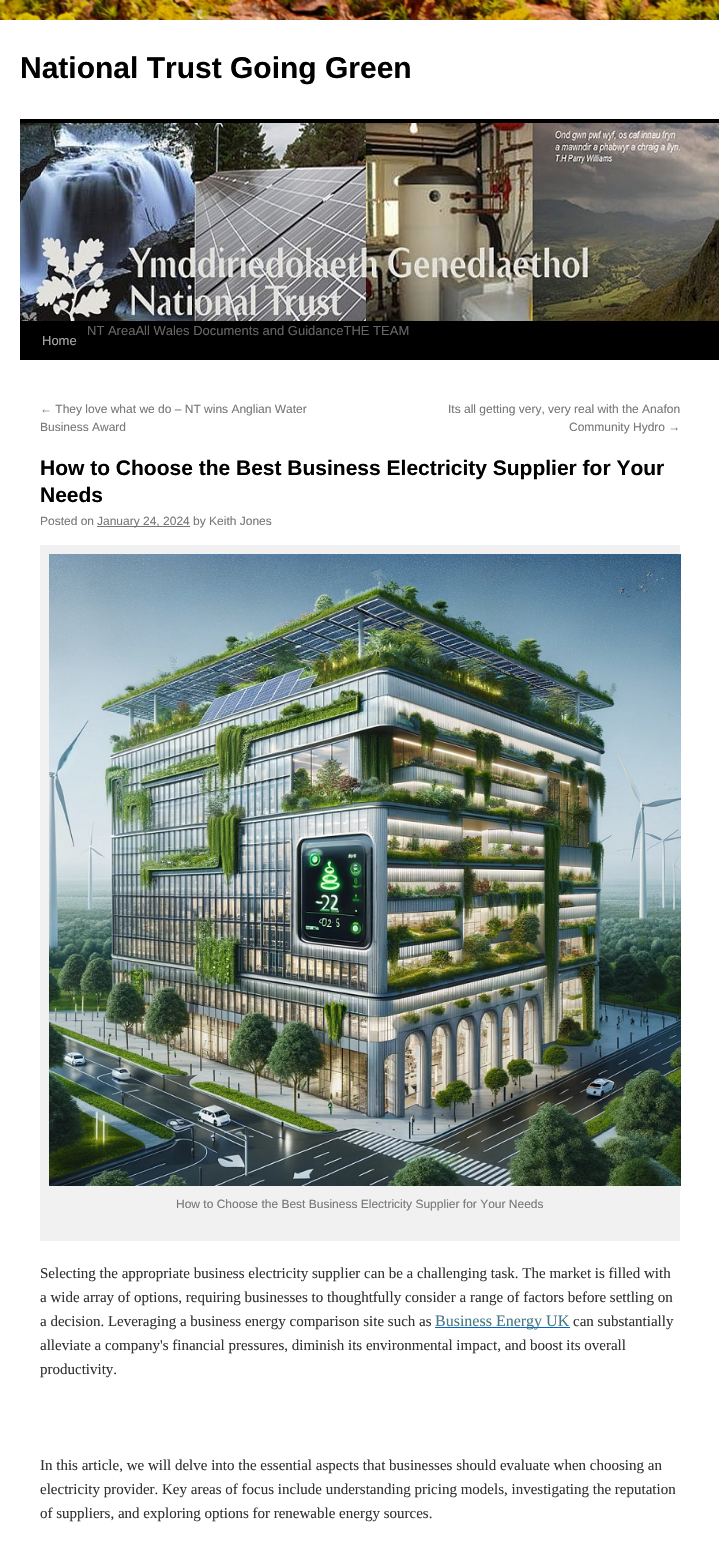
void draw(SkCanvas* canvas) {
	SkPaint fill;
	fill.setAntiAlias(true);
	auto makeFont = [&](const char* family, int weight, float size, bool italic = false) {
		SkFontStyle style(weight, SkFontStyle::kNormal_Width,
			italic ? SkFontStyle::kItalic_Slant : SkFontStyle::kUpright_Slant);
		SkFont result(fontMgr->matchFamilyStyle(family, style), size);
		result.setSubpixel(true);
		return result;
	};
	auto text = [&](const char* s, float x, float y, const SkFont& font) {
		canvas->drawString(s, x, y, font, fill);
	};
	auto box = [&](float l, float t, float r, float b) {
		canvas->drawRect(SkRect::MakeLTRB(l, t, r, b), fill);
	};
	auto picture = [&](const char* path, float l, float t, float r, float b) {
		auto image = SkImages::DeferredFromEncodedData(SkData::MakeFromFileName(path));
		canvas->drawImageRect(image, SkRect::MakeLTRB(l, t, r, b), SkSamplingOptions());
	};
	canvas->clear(0xFFFFFFFF);
	picture("image0.png", 0, 0, 719, 20);
	fill.setColor(0xFF000000);
	box(20, 119, 719, 123);
	box(20, 321, 719, 360);
	picture("image1.png", 20, 123, 719, 321);
	fill.setColor(0xFF777777);
	box(97, 526, 190, 527);
	fill.setColor(0xFFF1F1F1);
	box(40, 545, 680, 1241);
	picture("image2.png", 49, 554, 681, 1186);
	fill.setColor(0xFF0066CC);
	box(435, 1327, 570, 1328);
	auto font1 = makeFont("Liberation Sans", 700, 30);
	fill.setColor(0xFF000000);
	text("National Trust Going Green", 20, 78, font1);
	auto font2 = makeFont("Liberation Sans", 400, 13);
	fill.setColor(0xFF666666);
	text("NT AreaAll Wales Documents and GuidanceTHE TEAM", 87, 335, font2);
	fill.setColor(0xFFAAAAAA);
	text("Home", 42, 345, font2);
	auto font3 = makeFont("Liberation Sans", 400, 12);
	fill.setColor(0xFF777777);
	text("← They love what we do – NT wins Anglian Water", 40, 413, font3);
	text("Business Award", 40, 431, font3);
	text("Its all getting very, very real with the Anafon", 448, 413, font3);
	text("Community Hydro →", 569, 431, font3);
	auto font4 = makeFont("Liberation Sans", 700, 21);
	fill.setColor(0xFF000000);
	text("How to Choose the Best Business Electricity Supplier for Your", 40, 475, font4);
	text("Needs", 40, 502, font4);
	fill.setColor(0xFF777777);
	text("Posted on", 40, 525, font3);
	text("January 24, 2024 by Keith Jones", 97, 525, font3);
	text("How to Choose the Best Business Electricity Supplier for Your Needs", 176, 1208, font3);
	auto font5 = makeFont("Liberation Serif", 400, 15);
	fill.setColor(0xFF333333);
	text("Selecting the appropriate business electricity supplier can be a challenging task. The market is filled with", 40, 1278, font5);
	text("a wide array of options, requiring businesses to thoughtfully consider a range of factors before settling on", 40, 1302, font5);
	text("a decision. Leveraging a business energy comparison site such as", 40, 1326, font5);
	auto font6 = makeFont("Liberation Serif", 400, 16);
	fill.setColor(0xFF467886);
	text("Business Energy UK", 435, 1326, font6);
	fill.setColor(0xFF333333);
	text("can substantially", 573, 1326, font5);
	text("alleviate a company's financial pressures, diminish its environmental impact, and boost its overall", 40, 1350, font5);
	text("productivity.", 40, 1374, font5);
	text("In this article, we will delve into the essential aspects that businesses should evaluate when choosing an", 40, 1470, font5);
	text("electricity provider. Key areas of focus include understanding pricing models, investigating the reputation", 40, 1494, font5);
	text("of suppliers, and exploring options for renewable energy sources.", 40, 1518, font5);
}
